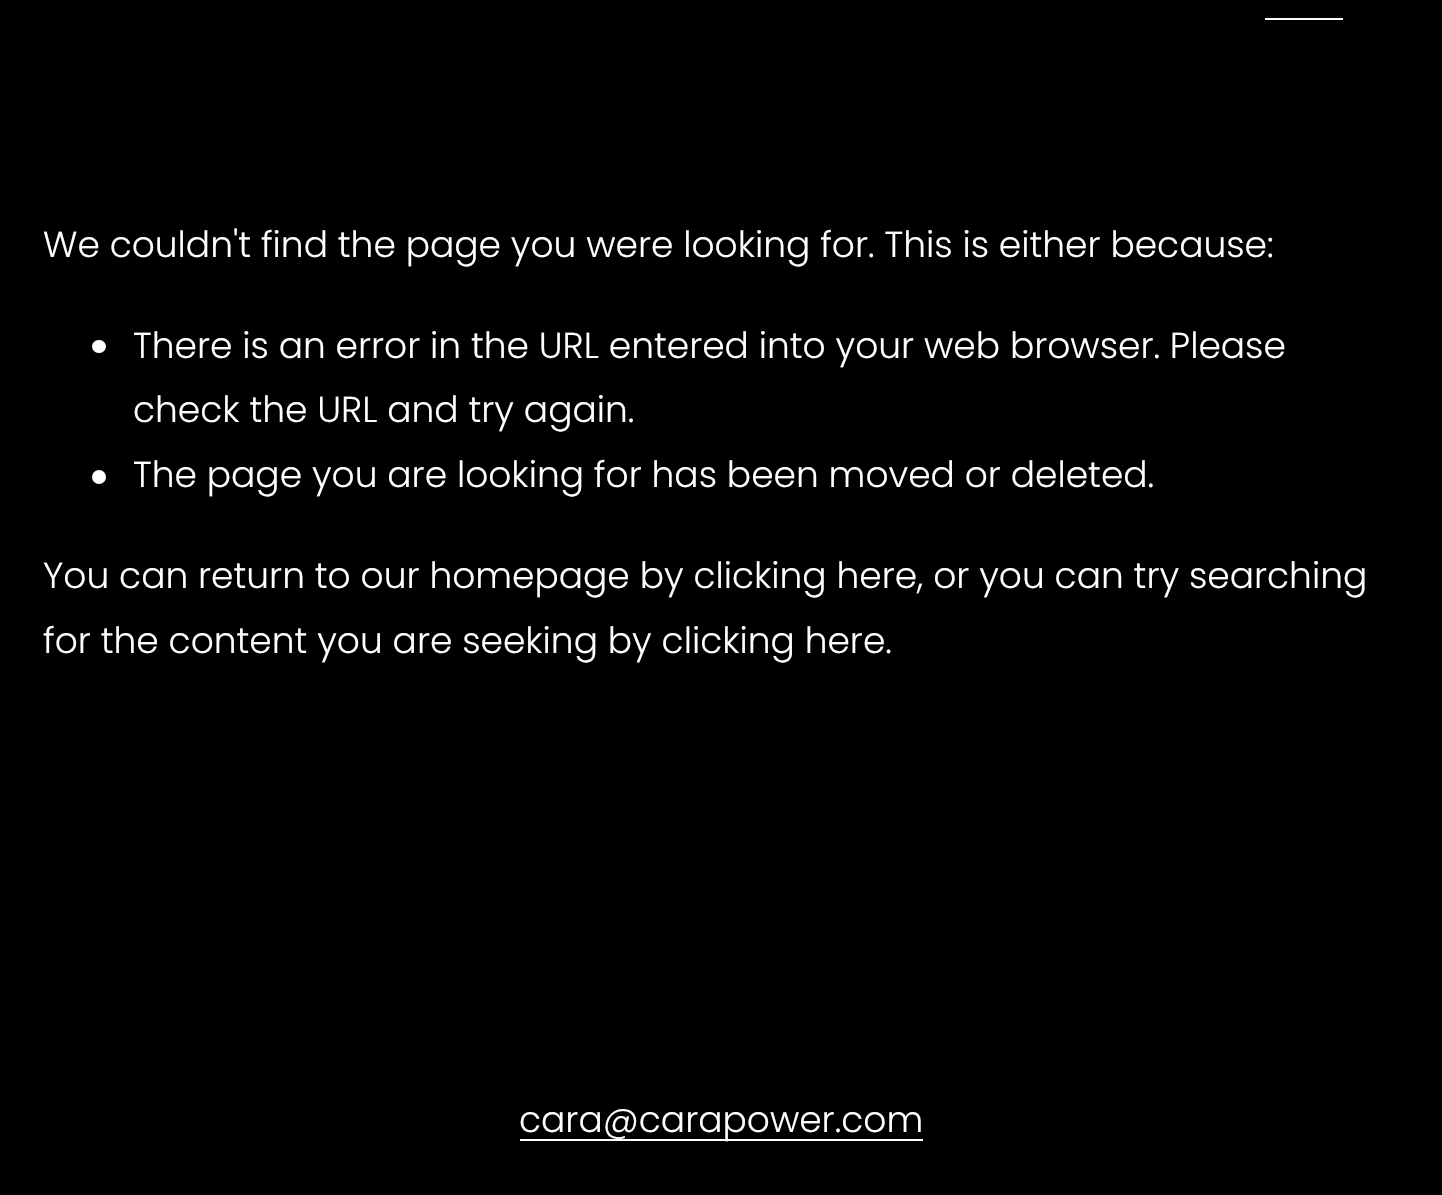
void draw(SkCanvas* canvas) {
	SkPaint fill;
	fill.setAntiAlias(true);
	auto makeFont = [&](const char* family, int weight, float size, bool italic = false) {
		SkFontStyle style(weight, SkFontStyle::kNormal_Width,
			italic ? SkFontStyle::kItalic_Slant : SkFontStyle::kUpright_Slant);
		SkFont result(fontMgr->matchFamilyStyle(family, style), size);
		result.setSubpixel(true);
		return result;
	};
	auto text = [&](const char* s, float x, float y, const SkFont& font) {
		canvas->drawString(s, x, y, font, fill);
	};
	auto box = [&](float l, float t, float r, float b) {
		canvas->drawRect(SkRect::MakeLTRB(l, t, r, b), fill);
	};
	auto roundBox = [&](float l, float t, float r, float b, float radius) {
		canvas->drawRoundRect(SkRect::MakeLTRB(l, t, r, b), radius, radius, fill);
	};
	canvas->clear(0xFF000000);
	fill.setColor(0xFFFFFFFF);
	box(1265, 18, 1343, 20);
	roundBox(92, 340, 106, 353, 6.5f);
	canvas->drawCircle(99, 477, 7, fill);
	box(520, 1139, 923, 1141);
	auto font1 = makeFont("Poppins", 300, 36);
	text("We couldn't find the page you were looking for. This is either because:", 43, 257, font1);
	text("There is an error in the URL entered into your web browser. Please", 133, 358, font1);
	text("check the URL and try again.", 133, 422, font1);
	text("The page you are looking for has been moved or deleted.", 133, 487, font1);
	text("You can return to our homepage by clicking here, or you can try searching", 43, 588, font1);
	text("for the content you are seeking by clicking here.", 43, 653, font1);
	text("cara@carapower.com", 519, 1132, font1);
}
